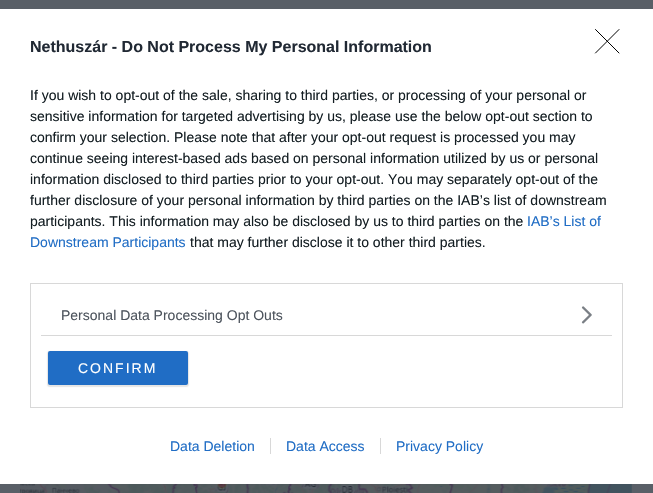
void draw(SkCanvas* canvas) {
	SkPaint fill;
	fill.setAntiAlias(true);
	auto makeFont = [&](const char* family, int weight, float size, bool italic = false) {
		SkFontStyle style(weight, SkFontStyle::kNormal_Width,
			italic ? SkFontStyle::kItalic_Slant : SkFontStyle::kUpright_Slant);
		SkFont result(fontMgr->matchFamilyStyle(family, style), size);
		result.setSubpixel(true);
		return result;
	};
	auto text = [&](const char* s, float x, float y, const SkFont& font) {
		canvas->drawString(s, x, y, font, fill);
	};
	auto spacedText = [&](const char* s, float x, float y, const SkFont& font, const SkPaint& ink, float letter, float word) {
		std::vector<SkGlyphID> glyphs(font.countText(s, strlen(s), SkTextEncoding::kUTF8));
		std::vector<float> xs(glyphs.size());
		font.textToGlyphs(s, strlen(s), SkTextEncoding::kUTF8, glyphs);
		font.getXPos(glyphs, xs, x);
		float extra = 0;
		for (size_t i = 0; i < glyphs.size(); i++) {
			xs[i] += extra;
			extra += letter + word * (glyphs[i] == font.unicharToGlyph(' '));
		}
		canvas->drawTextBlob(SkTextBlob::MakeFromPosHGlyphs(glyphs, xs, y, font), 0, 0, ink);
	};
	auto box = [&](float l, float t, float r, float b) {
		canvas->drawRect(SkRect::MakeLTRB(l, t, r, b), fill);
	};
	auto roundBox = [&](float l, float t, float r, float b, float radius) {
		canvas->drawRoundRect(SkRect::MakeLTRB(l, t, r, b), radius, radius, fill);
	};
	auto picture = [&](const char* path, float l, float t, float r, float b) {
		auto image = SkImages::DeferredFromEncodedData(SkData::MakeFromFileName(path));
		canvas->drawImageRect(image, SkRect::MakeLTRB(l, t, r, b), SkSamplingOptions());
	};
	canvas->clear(0xFF595F67);
	fill.setColor(0xFFFFFFFF);
	box(0, 9, 653, 484);
	fill.setStyle(SkPaint::kStroke_Style);
	fill.setStrokeWidth(1);
	fill.setColor(0xFFD8D8D8);
	canvas->drawRect(SkRect::MakeLTRB(30.5f, 283.5f, 622.5f, 407.5f), fill);
	fill.setStyle(SkPaint::kFill_Style);
	box(41, 335, 612, 336);
	picture("image0.png", 581, 306, 592, 324);
	fill.setColor(0x1A000000);
	fill.setMaskFilter(SkMaskFilter::MakeBlur(kNormal_SkBlurStyle, 0.5f));
	canvas->drawRoundRect(SkRect::MakeLTRB(47, 351, 189, 387), 3, 3, fill);
	fill.setMaskFilter(nullptr);
	fill.setColor(0xFF206DC5);
	roundBox(48, 351, 188, 385, 2);
	fill.setStyle(SkPaint::kStroke_Style);
	fill.setStrokeCap(SkPaint::kRound_Cap);
	fill.setStrokeJoin(SkPaint::kRound_Join);
	fill.setColor(0xFF000000);
	canvas->drawPath(SkPathBuilder().moveTo(595.5f, 29.5f).lineTo(619, 53).moveTo(619, 29.5f).lineTo(595.5f, 53).detach(), fill);
	fill.setStyle(SkPaint::kFill_Style);
	fill.setColor(0xFFD8D8D8);
	box(270, 438, 271, 454);
	box(380, 438, 381, 454);
	picture("image1.png", 20, 484, 632, 493);
	auto font1 = makeFont("Liberation Sans", 700, 16);
	fill.setColor(0xFF212934);
	text("Nethuszár - Do Not Process My Personal Information", 30, 52, font1);
	auto font2 = makeFont("Liberation Sans", 400, 14);
	fill.setColor(0xFF141E23);
	text("If you wish to opt-out of the sale, sharing to third parties, or processing of your personal or", 30, 100, font2);
	text("sensitive information for targeted advertising by us, please use the below opt-out section to", 30, 121, font2);
	text("confirm your selection. Please note that after your opt-out request is processed you may", 30, 142, font2);
	text("continue seeing interest-based ads based on personal information utilized by us or personal", 30, 163, font2);
	text("information disclosed to third parties prior to your opt-out. You may separately opt-out of the", 30, 184, font2);
	text("further disclosure of your personal information by third parties on the IAB’s list of downstream", 30, 205, font2);
	text("participants. This information may also be disclosed by us to third parties on the", 30, 226, font2);
	fill.setColor(0xFF206DC5);
	text("IAB’s List of", 527, 226, font2);
	text("Downstream Participants", 30, 247, font2);
	fill.setColor(0xFF141E23);
	text("that may further disclose it to other third parties.", 190, 247, font2);
	fill.setColor(0xFF4D545D);
	text("Personal Data Processing Opt Outs", 61, 320, font2);
	fill.setColor(0xFFFFFFFF);
	spacedText("CONFIRM", 78, 373, font2, fill, 2, 0);
	fill.setColor(0xFF206DC5);
	text("Data Deletion", 170, 451, font2);
	text("Data Access", 286, 451, font2);
	text("Privacy Policy", 396, 451, font2);
}
